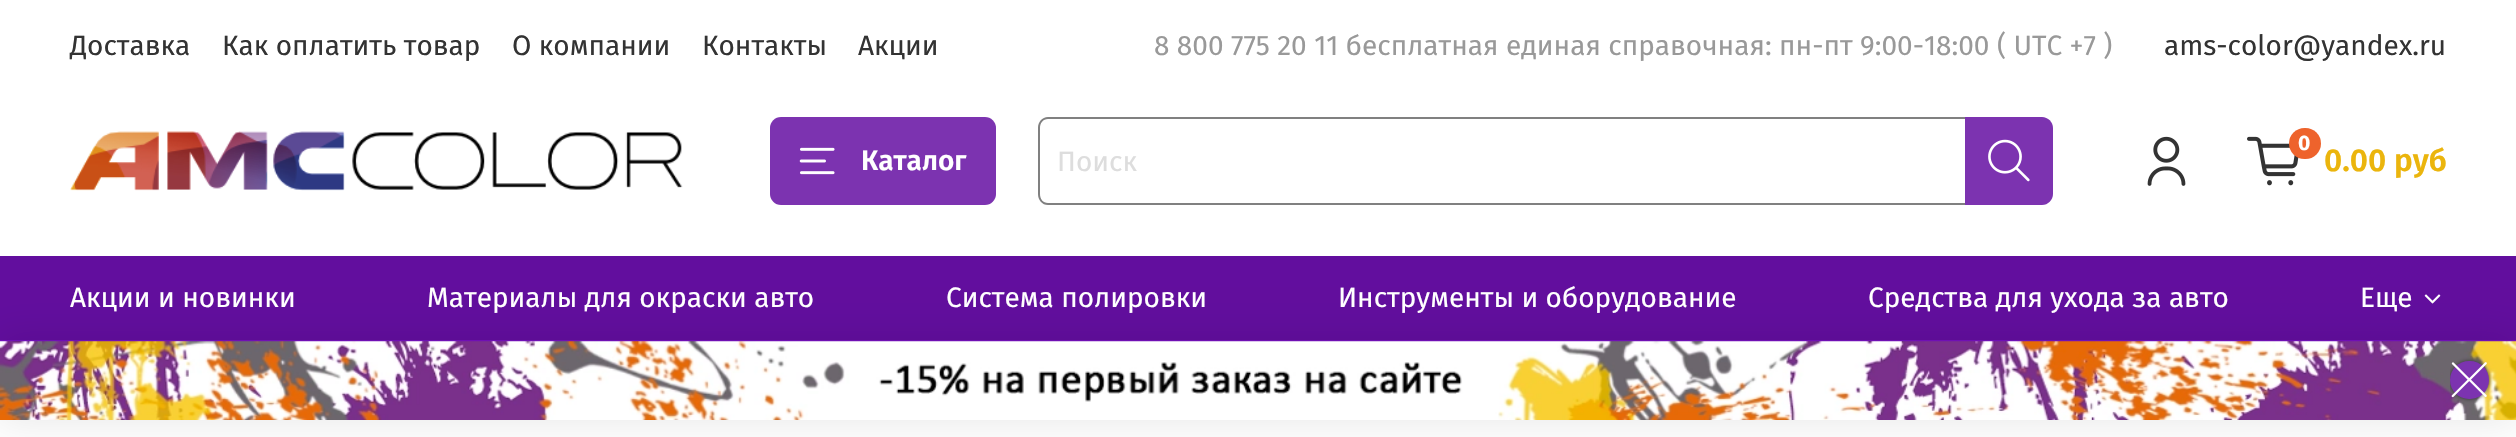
void draw(SkCanvas* canvas) {
	SkPaint fill;
	fill.setAntiAlias(true);
	auto makeFont = [&](const char* family, int weight, float size, bool italic = false) {
		SkFontStyle style(weight, SkFontStyle::kNormal_Width,
			italic ? SkFontStyle::kItalic_Slant : SkFontStyle::kUpright_Slant);
		SkFont result(fontMgr->matchFamilyStyle(family, style), size);
		result.setSubpixel(true);
		return result;
	};
	auto text = [&](const char* s, float x, float y, const SkFont& font) {
		canvas->drawString(s, x, y, font, fill);
	};
	auto box = [&](float l, float t, float r, float b) {
		canvas->drawRect(SkRect::MakeLTRB(l, t, r, b), fill);
	};
	auto roundBox = [&](float l, float t, float r, float b, float radius) {
		canvas->drawRoundRect(SkRect::MakeLTRB(l, t, r, b), radius, radius, fill);
	};
	auto picture = [&](const char* path, float l, float t, float r, float b) {
		auto image = SkImages::DeferredFromEncodedData(SkData::MakeFromFileName(path));
		canvas->drawImageRect(image, SkRect::MakeLTRB(l, t, r, b), SkSamplingOptions());
	};
	canvas->clear(0xFFFFFFFF);
	picture("image0.png", 70, 131, 683, 191);
	fill.setColor(0xFF7C33B0);
	roundBox(770, 117, 996, 205, 11);
	picture("image1.png", 799, 147, 835, 175);
	fill.setColor(0xFF808080);
	canvas->drawPath(SkPathBuilder(SkPathFillType::kEvenOdd).moveTo(1048, 117).lineTo(1965, 117).lineTo(1965, 205).lineTo(1048, 205).cubicTo(1042, 205, 1038, 200, 1038, 194).lineTo(1038, 128).cubicTo(1038, 122, 1042, 117, 1048, 117).close().moveTo(1048, 119).lineTo(1965, 119).lineTo(1965, 203).lineTo(1048, 203).cubicTo(1043, 203, 1040, 199, 1040, 194).lineTo(1040, 128).cubicTo(1040, 123, 1043, 119, 1048, 119).close().detach(), fill);
	fill.setColor(0xFF7C33B0);
	canvas->drawPath(SkPathBuilder().moveTo(1965, 117).lineTo(2042, 117).cubicTo(2048, 117, 2053, 122, 2053, 128).lineTo(2053, 194).cubicTo(2053, 200, 2048, 205, 2042, 205).lineTo(1965, 205).close().detach(), fill);
	picture("image2.png", 1988, 139, 2030, 182);
	picture("image3.png", 2147, 136, 2186, 186);
	picture("image4.png", 2247, 136, 2299, 186);
	fill.setColor(0xFFEE632C);
	roundBox(2289, 128, 2321, 159, 15.5f);
	fill.setColor(0xFF620E9E);
	box(0, 256, 2516, 340);
	fill.setColor(0xFF7611BE);
	box(0, 340, 2516, 342);
	picture("image7.png", 2424, 294, 2441, 304);
	fill.setColor(0x17000000);
	fill.setMaskFilter(SkMaskFilter::MakeBlur(kNormal_SkBlurStyle, 20));
	canvas->drawRect(SkRect::MakeLTRB(-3, 336, 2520, 422), fill);
	fill.setMaskFilter(nullptr);
	picture("image5.png", 0, 341, 2516, 420);
	canvas->save();
	canvas->clipRect(SkRect::MakeLTRB(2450, 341, 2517, 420));
	fill.setColor(0xFF333333);
	fill.setMaskFilter(SkMaskFilter::MakeBlur(kNormal_SkBlurStyle, 2));
	canvas->drawRoundRect(SkRect::MakeLTRB(2450, 361, 2489, 399), 19, 19, fill);
	fill.setMaskFilter(nullptr);
	canvas->restore();
	fill.setColor(0xFF7C33B0);
	roundBox(2450, 361, 2489, 399, 19);
	picture("image6.png", 2451, 362, 2487, 398);
	auto font1 = makeFont("Fira Sans", 400, 28);
	fill.setColor(0xFF333333);
	text("Доставка", 70, 55, font1);
	text("Как оплатить товар", 222, 55, font1);
	text("О компании", 512, 55, font1);
	text("Контакты", 702, 55, font1);
	text("Акции", 858, 55, font1);
	fill.setColor(0xFF999999);
	text("8 800 775 20 11 бесплатная единая справочная: пн-пт 9:00-18:00 ( UTC +7 )", 1154, 55, font1);
	fill.setColor(0xFF333333);
	text("ams-color@yandex.ru", 2164, 55, font1);
	auto font2 = makeFont("Fira Sans", 600, 28);
	fill.setColor(0xFFFFFFFF);
	text("Каталог", 861, 170, font2);
	fill.setColor(0xFFDDDDDD);
	text("Поиск", 1057, 171, font1);
	auto font3 = makeFont("Fira Sans", 700, 21);
	fill.setColor(0xFFFFFFFF);
	text("0", 2298, 150, font3);
	auto font4 = makeFont("Fira Sans", 600, 31.5f);
	fill.setColor(0xFFEBB50D);
	text("0.00 руб", 2324, 171, font4);
	fill.setColor(0xFFFFFFFF);
	text("Акции и новинки", 70, 307, font1);
	text("Материалы для окраски авто", 427, 307, font1);
	text("Система полировки", 946, 307, font1);
	text("Инструменты и оборудование", 1338, 307, font1);
	text("Средства для ухода за авто", 1868, 307, font1);
	text("Еще", 2360, 307, font1);
}
